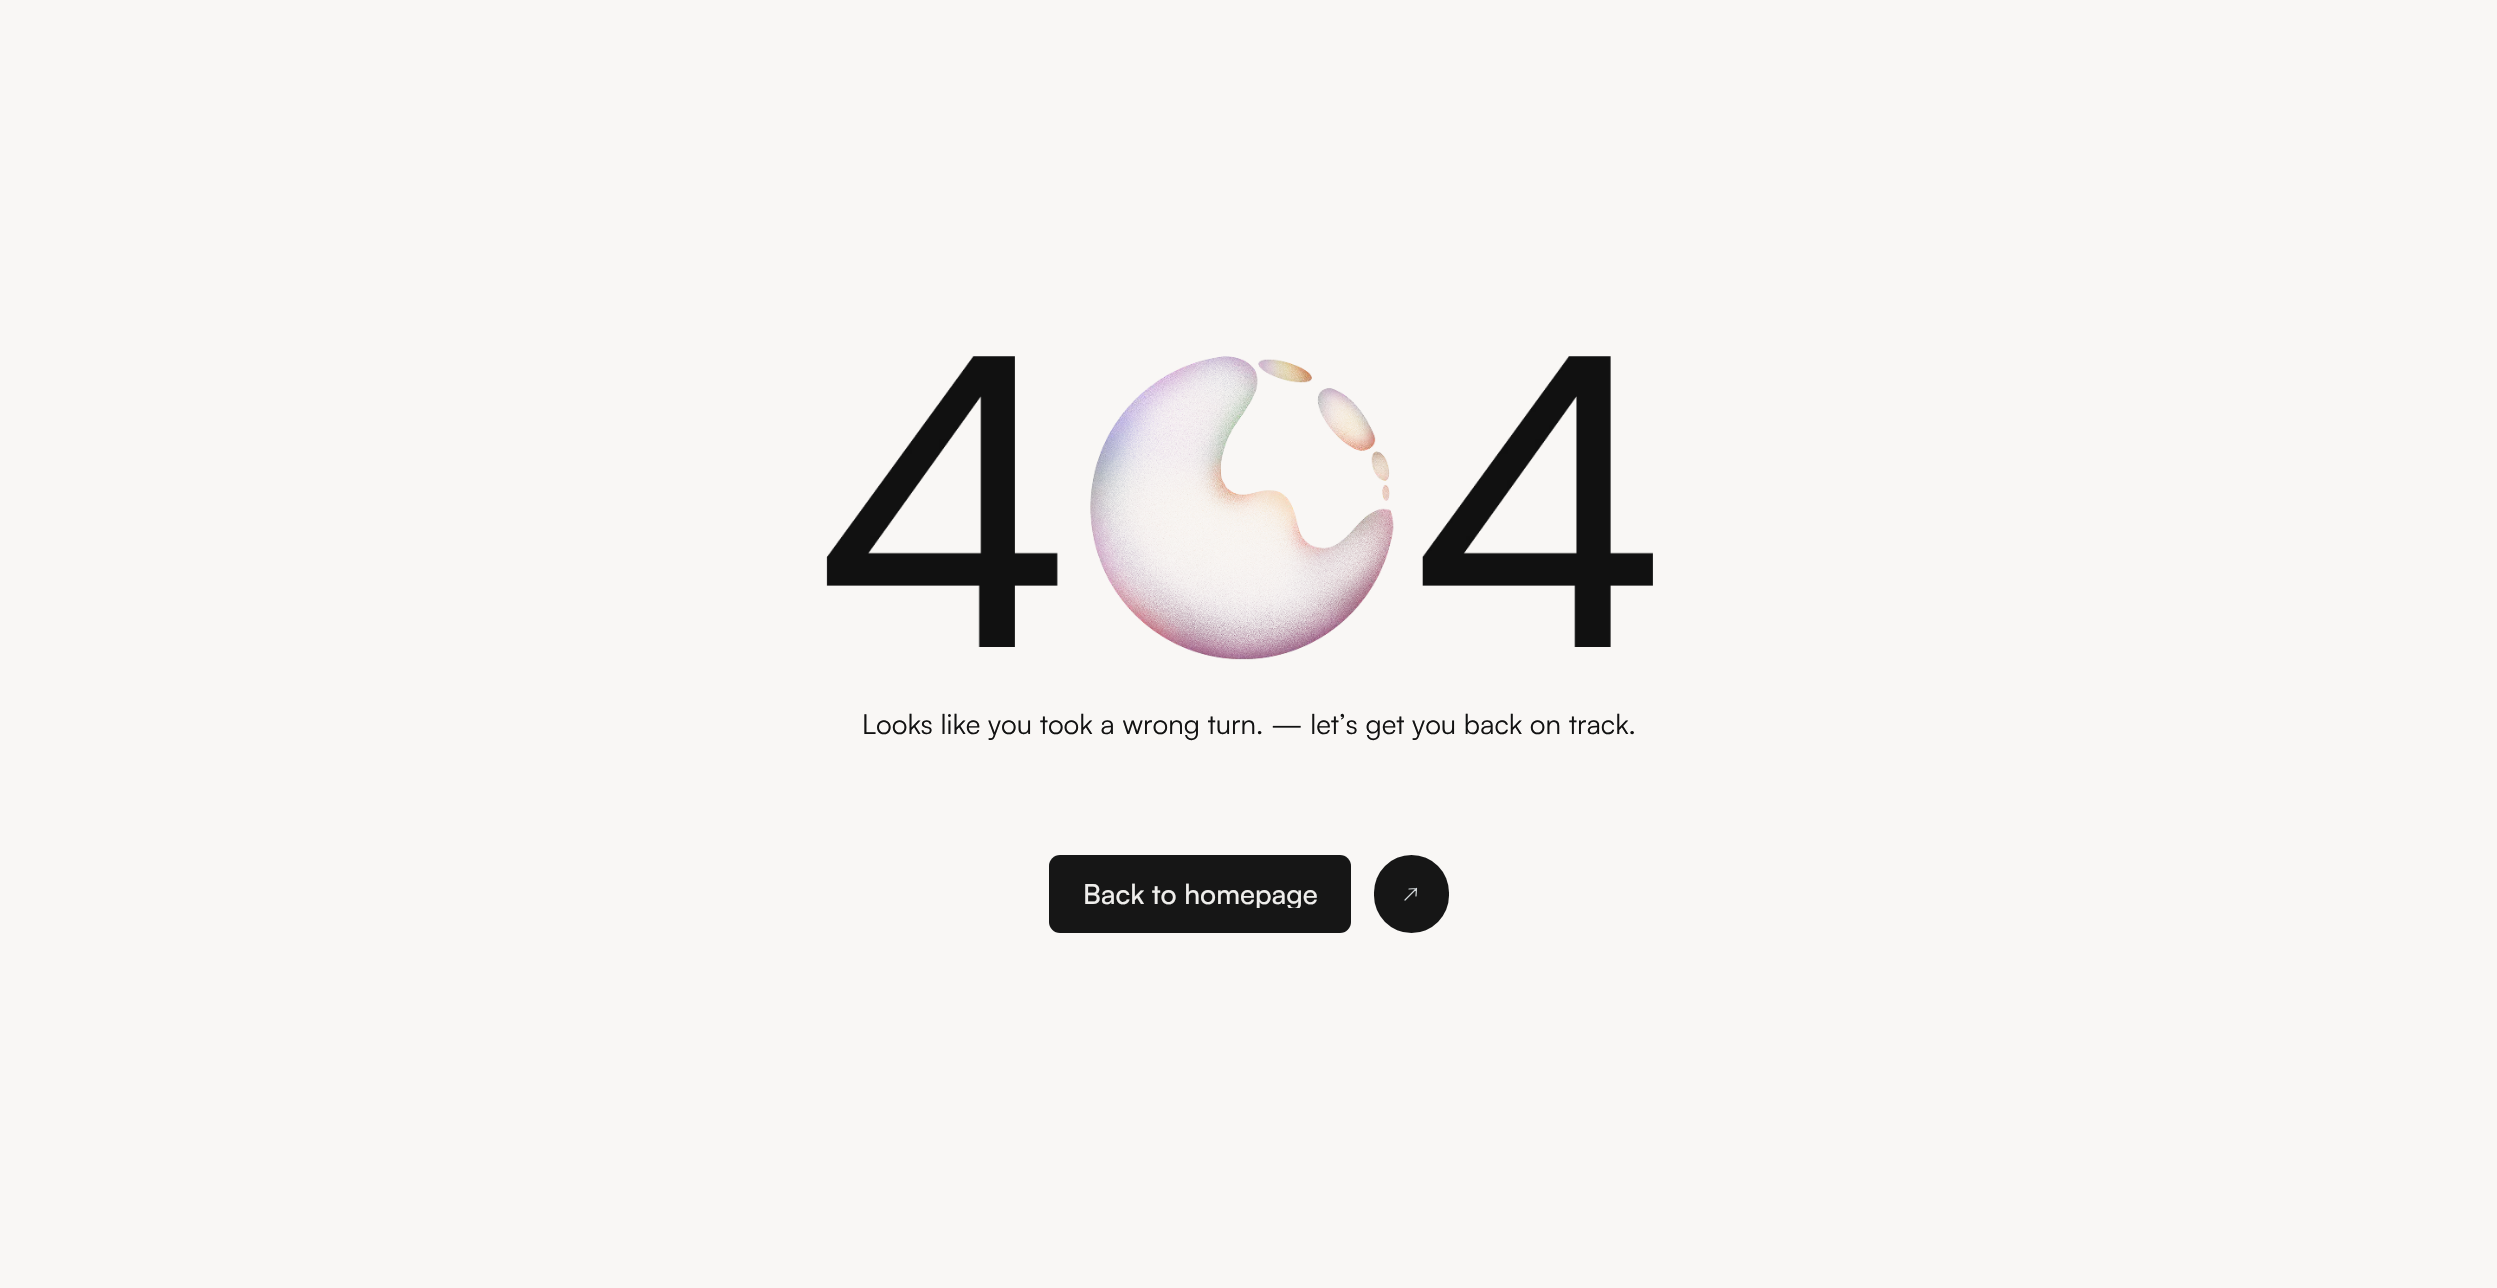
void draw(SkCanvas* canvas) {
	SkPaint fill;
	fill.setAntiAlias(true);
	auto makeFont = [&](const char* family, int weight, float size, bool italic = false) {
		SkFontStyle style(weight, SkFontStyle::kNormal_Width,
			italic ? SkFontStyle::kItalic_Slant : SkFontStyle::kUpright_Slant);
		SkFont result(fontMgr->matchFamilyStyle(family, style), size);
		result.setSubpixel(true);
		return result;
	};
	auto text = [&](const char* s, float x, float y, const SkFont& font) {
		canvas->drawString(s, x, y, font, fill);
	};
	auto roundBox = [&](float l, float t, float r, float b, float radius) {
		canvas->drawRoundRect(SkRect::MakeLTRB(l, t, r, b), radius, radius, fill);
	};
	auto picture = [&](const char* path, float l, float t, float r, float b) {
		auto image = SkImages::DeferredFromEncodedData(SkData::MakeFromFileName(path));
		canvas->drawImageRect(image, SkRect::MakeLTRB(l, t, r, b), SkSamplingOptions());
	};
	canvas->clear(0xFFF9F7F5);
	picture("image0.png", 826, 356, 1653, 660);
	fill.setColor(0xFF161616);
	roundBox(1049, 855, 1351, 933, 11);
	roundBox(1374, 855, 1449, 933, 37.5f);
	fill.setStyle(SkPaint::kStroke_Style);
	fill.setStrokeWidth(1.2f);
	fill.setStrokeCap(SkPaint::kRound_Cap);
	fill.setStrokeJoin(SkPaint::kRound_Join);
	fill.setColor(0xFFD3D8DA);
	canvas->drawPath(SkPathBuilder().moveTo(1405, 900).lineTo(1416.5f, 888.5f).moveTo(1416.5f, 888.5f).lineTo(1409, 889).moveTo(1416.5f, 888.5f).lineTo(1416, 896).detach(), fill);
	auto font1 = makeFont("Satoshi", 400, 27.65f);
	fill.setStyle(SkPaint::kFill_Style);
	fill.setColor(0xFF121212);
	text("Looks like you took a wrong turn. — let’s get you back on track.", 862, 734, font1);
	canvas->save();
	canvas->clipRect(SkRect::MakeLTRB(1083, 880, 1318, 908));
	auto font2 = makeFont("Satoshi", 500, 27.65f);
	fill.setColor(0xFFEFEEEC);
	text("Back to homepage", 1083, 904, font2);
	canvas->restore();
}
